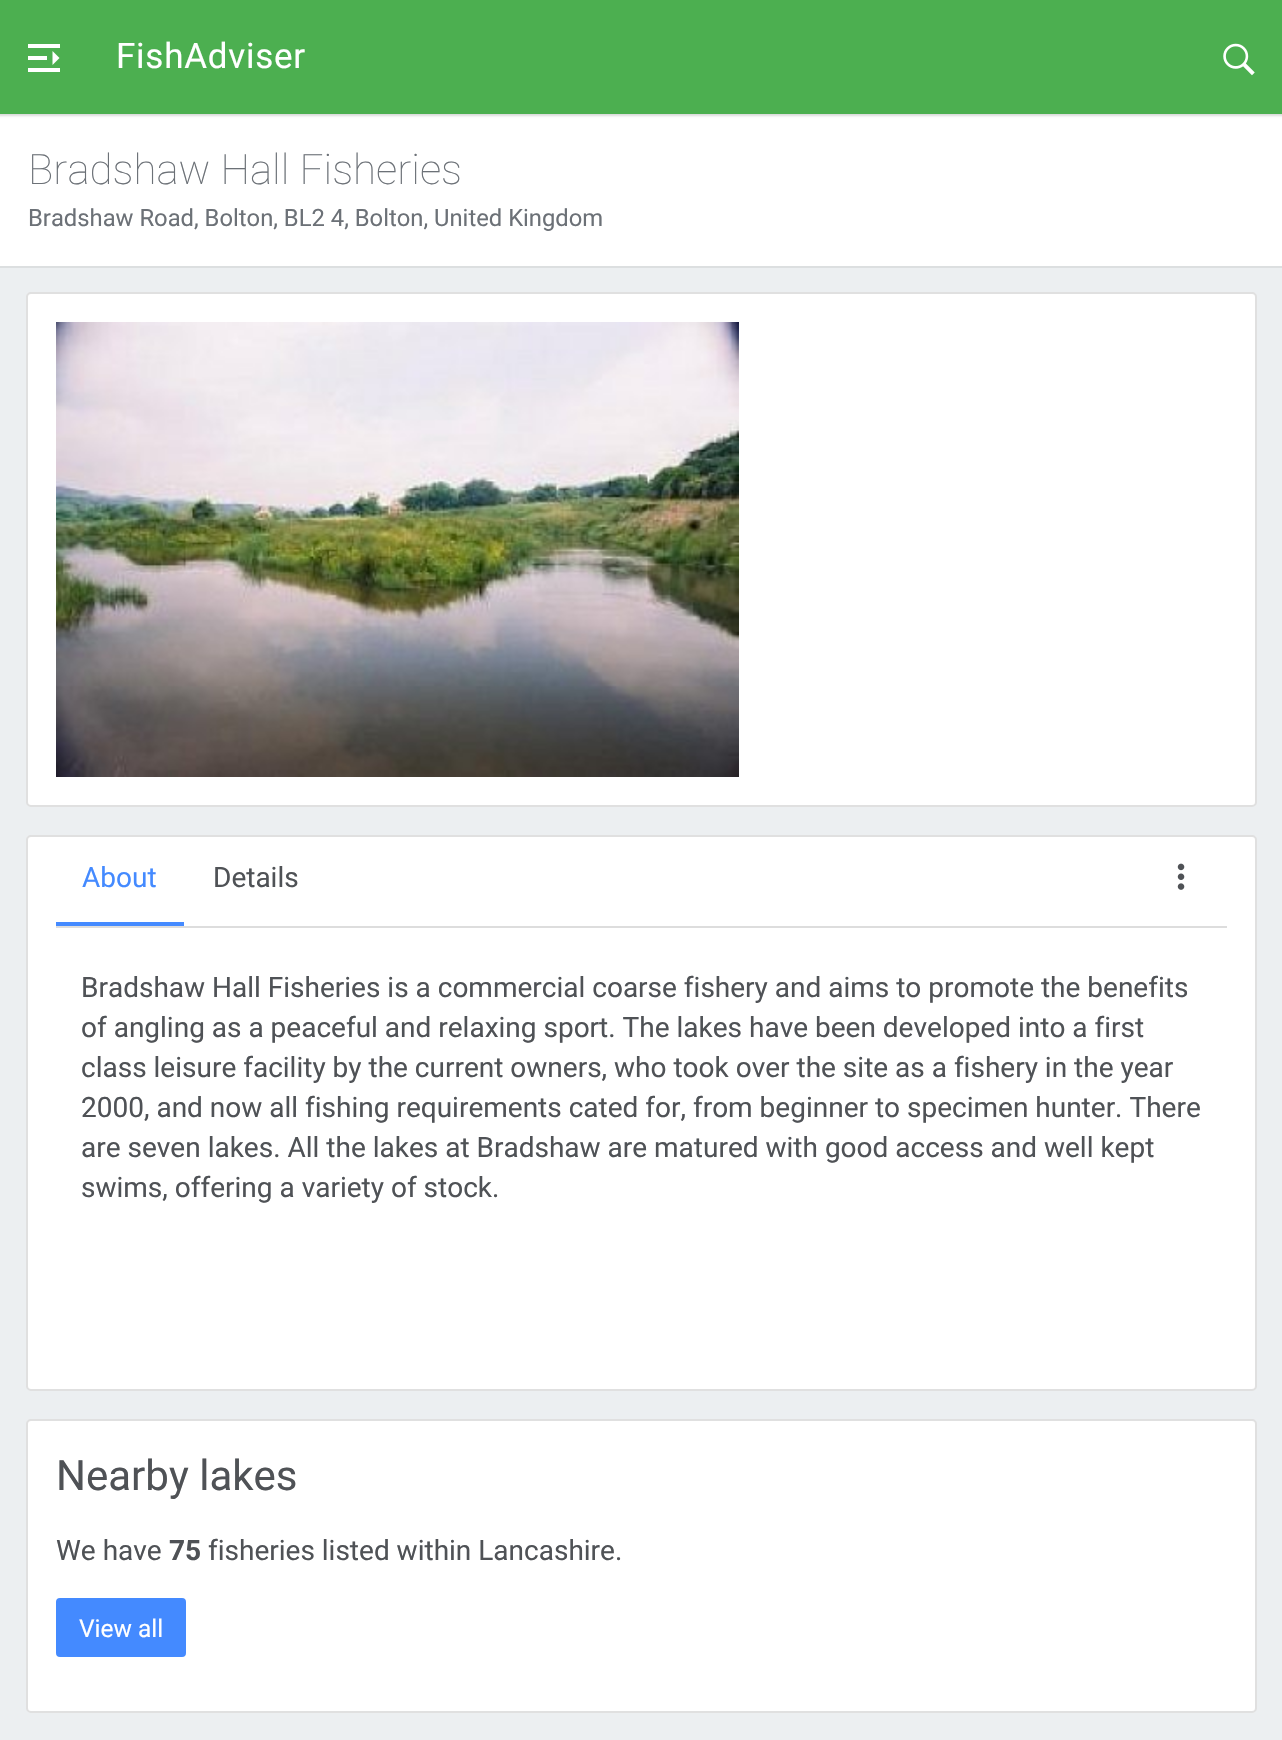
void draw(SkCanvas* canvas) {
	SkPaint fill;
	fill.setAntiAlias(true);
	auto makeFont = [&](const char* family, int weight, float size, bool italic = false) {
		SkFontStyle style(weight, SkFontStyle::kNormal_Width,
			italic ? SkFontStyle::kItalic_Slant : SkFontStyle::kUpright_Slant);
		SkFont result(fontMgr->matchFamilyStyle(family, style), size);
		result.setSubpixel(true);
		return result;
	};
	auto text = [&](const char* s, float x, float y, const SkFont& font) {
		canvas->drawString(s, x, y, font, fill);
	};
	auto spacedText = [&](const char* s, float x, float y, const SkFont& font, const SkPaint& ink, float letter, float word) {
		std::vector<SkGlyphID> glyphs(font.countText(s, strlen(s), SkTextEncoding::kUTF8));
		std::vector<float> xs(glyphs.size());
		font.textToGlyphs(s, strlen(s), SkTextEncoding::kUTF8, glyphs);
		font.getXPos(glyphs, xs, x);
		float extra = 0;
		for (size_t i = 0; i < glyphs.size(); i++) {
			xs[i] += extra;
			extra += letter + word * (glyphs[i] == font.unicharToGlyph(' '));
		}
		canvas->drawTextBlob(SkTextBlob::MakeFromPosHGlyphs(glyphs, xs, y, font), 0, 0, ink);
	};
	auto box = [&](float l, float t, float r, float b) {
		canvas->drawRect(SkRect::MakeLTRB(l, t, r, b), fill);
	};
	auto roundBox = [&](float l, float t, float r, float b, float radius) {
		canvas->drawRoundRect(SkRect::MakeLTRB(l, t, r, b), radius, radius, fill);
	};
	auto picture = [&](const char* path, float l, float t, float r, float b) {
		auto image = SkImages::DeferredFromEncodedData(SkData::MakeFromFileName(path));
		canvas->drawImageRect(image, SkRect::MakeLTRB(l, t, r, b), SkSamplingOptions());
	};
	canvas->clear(0xFFECEFF1);
	fill.setColor(0xFF4CAF50);
	box(0, 0, 1282, 114);
	fill.setColor(0xFFFFFFFF);
	box(0, 114, 1282, 266);
	canvas->save();
	canvas->clipPath(SkPathBuilder(SkPathFillType::kEvenOdd).moveTo(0, 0).lineTo(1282, 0).lineTo(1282, 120).lineTo(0, 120).close().moveTo(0, 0).lineTo(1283, 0).lineTo(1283, 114).lineTo(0, 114).close().detach(), true);
	fill.setColor(0x24000000);
	fill.setMaskFilter(SkMaskFilter::MakeBlur(kNormal_SkBlurStyle, 1));
	canvas->drawRect(SkRect::MakeLTRB(-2, -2, 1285, 116), fill);
	fill.setMaskFilter(nullptr);
	canvas->restore();
	fill.setColor(0xFFFFFFFF);
	box(28, 44, 60, 48);
	box(28, 56, 47, 60);
	canvas->drawPath(SkPathBuilder().moveTo(52.5f, 65).lineTo(52.5f, 51).lineTo(59.5f, 58).close().detach(), fill);
	box(28, 68, 60, 72);
	picture("image0.png", 1223, 43, 1255, 76);
	fill.setColor(0xFFDCDFE0);
	canvas->drawPath(SkPathBuilder().moveTo(0, 266).lineTo(0, 268).lineTo(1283, 268).lineTo(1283, 116).lineTo(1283, 266).close().detach(), fill);
	fill.setColor(0xFFFFFFFF);
	roundBox(26, 292, 1257, 807, 5);
	fill.setStyle(SkPaint::kStroke_Style);
	fill.setStrokeWidth(2);
	fill.setColor(0x1F000000);
	canvas->drawRoundRect(SkRect::MakeLTRB(27, 293, 1256, 806), 4, 4, fill);
	picture("image1.png", 56, 322, 739, 777);
	fill.setStyle(SkPaint::kFill_Style);
	fill.setColor(0xFFFFFFFF);
	roundBox(26, 835, 1257, 1391, 5);
	fill.setStyle(SkPaint::kStroke_Style);
	fill.setColor(0x1F000000);
	canvas->drawRoundRect(SkRect::MakeLTRB(27, 836, 1256, 1390), 4, 4, fill);
	fill.setStyle(SkPaint::kFill_Style);
	fill.setColor(0xFFDDDDDD);
	box(56, 926, 1227, 928);
	fill.setColor(0xFF448AFF);
	box(56, 922, 184, 926);
	picture("image2.png", 1177, 863, 1185, 890);
	fill.setColor(0xFFFFFFFF);
	roundBox(26, 1419, 1257, 1713, 5);
	fill.setStyle(SkPaint::kStroke_Style);
	fill.setColor(0x1F000000);
	canvas->drawRoundRect(SkRect::MakeLTRB(27, 1420, 1256, 1712), 4, 4, fill);
	fill.setStyle(SkPaint::kFill_Style);
	fill.setColor(0xFF448AFF);
	canvas->drawRoundRect(SkRect::MakeLTRB(57, 1599, 185, 1656), 3, 3, fill);
	fill.setStyle(SkPaint::kStroke_Style);
	canvas->drawRoundRect(SkRect::MakeLTRB(57, 1599, 185, 1656), 3, 3, fill);
	auto font1 = makeFont("Roboto", 400, 35);
	fill.setStyle(SkPaint::kFill_Style);
	fill.setColor(0xFFFFFFFF);
	spacedText("FishAdviser", 116, 68, font1, fill, 0.75f, 0);
	auto font2 = makeFont("Roboto", 100, 42);
	fill.setColor(0xFF6C7177);
	text("Bradshaw Hall Fisheries", 28, 184, font2);
	auto font3 = makeFont("Roboto", 400, 23.8f);
	text("Bradshaw Road, Bolton, BL2 4, Bolton, United Kingdom", 28, 226, font3);
	auto font4 = makeFont("Roboto", 400, 28);
	fill.setColor(0xFF448AFF);
	text("About", 82, 887, font4);
	fill.setColor(0xFF4F5256);
	text("Details", 213, 887, font4);
	text("Bradshaw Hall Fisheries is a commercial coarse fishery and aims to promote the benefits", 81, 997, font4);
	text("of angling as a peaceful and relaxing sport. The lakes have been developed into a first", 81, 1037, font4);
	text("class leisure facility by the current owners, who took over the site as a fishery in the year", 81, 1077, font4);
	text("2000, and now all fishing requirements cated for, from beginner to specimen hunter. There", 81, 1117, font4);
	text("are seven lakes. All the lakes at Bradshaw are matured with good access and well kept", 81, 1157, font4);
	text("swims, offering a variety of stock.", 81, 1197, font4);
	auto font5 = makeFont("Roboto", 400, 42);
	text("Nearby lakes", 56, 1490, font5);
	text("We have", 56, 1560, font4);
	auto font6 = makeFont("Roboto", 700, 28);
	text("75", 169, 1560, font6);
	text("fisheries listed within Lancashire.", 208, 1560, font4);
	auto font7 = makeFont("Roboto", 400, 24.5f);
	fill.setColor(0xFFFFFFFF);
	text("View all", 79, 1637, font7);
}
